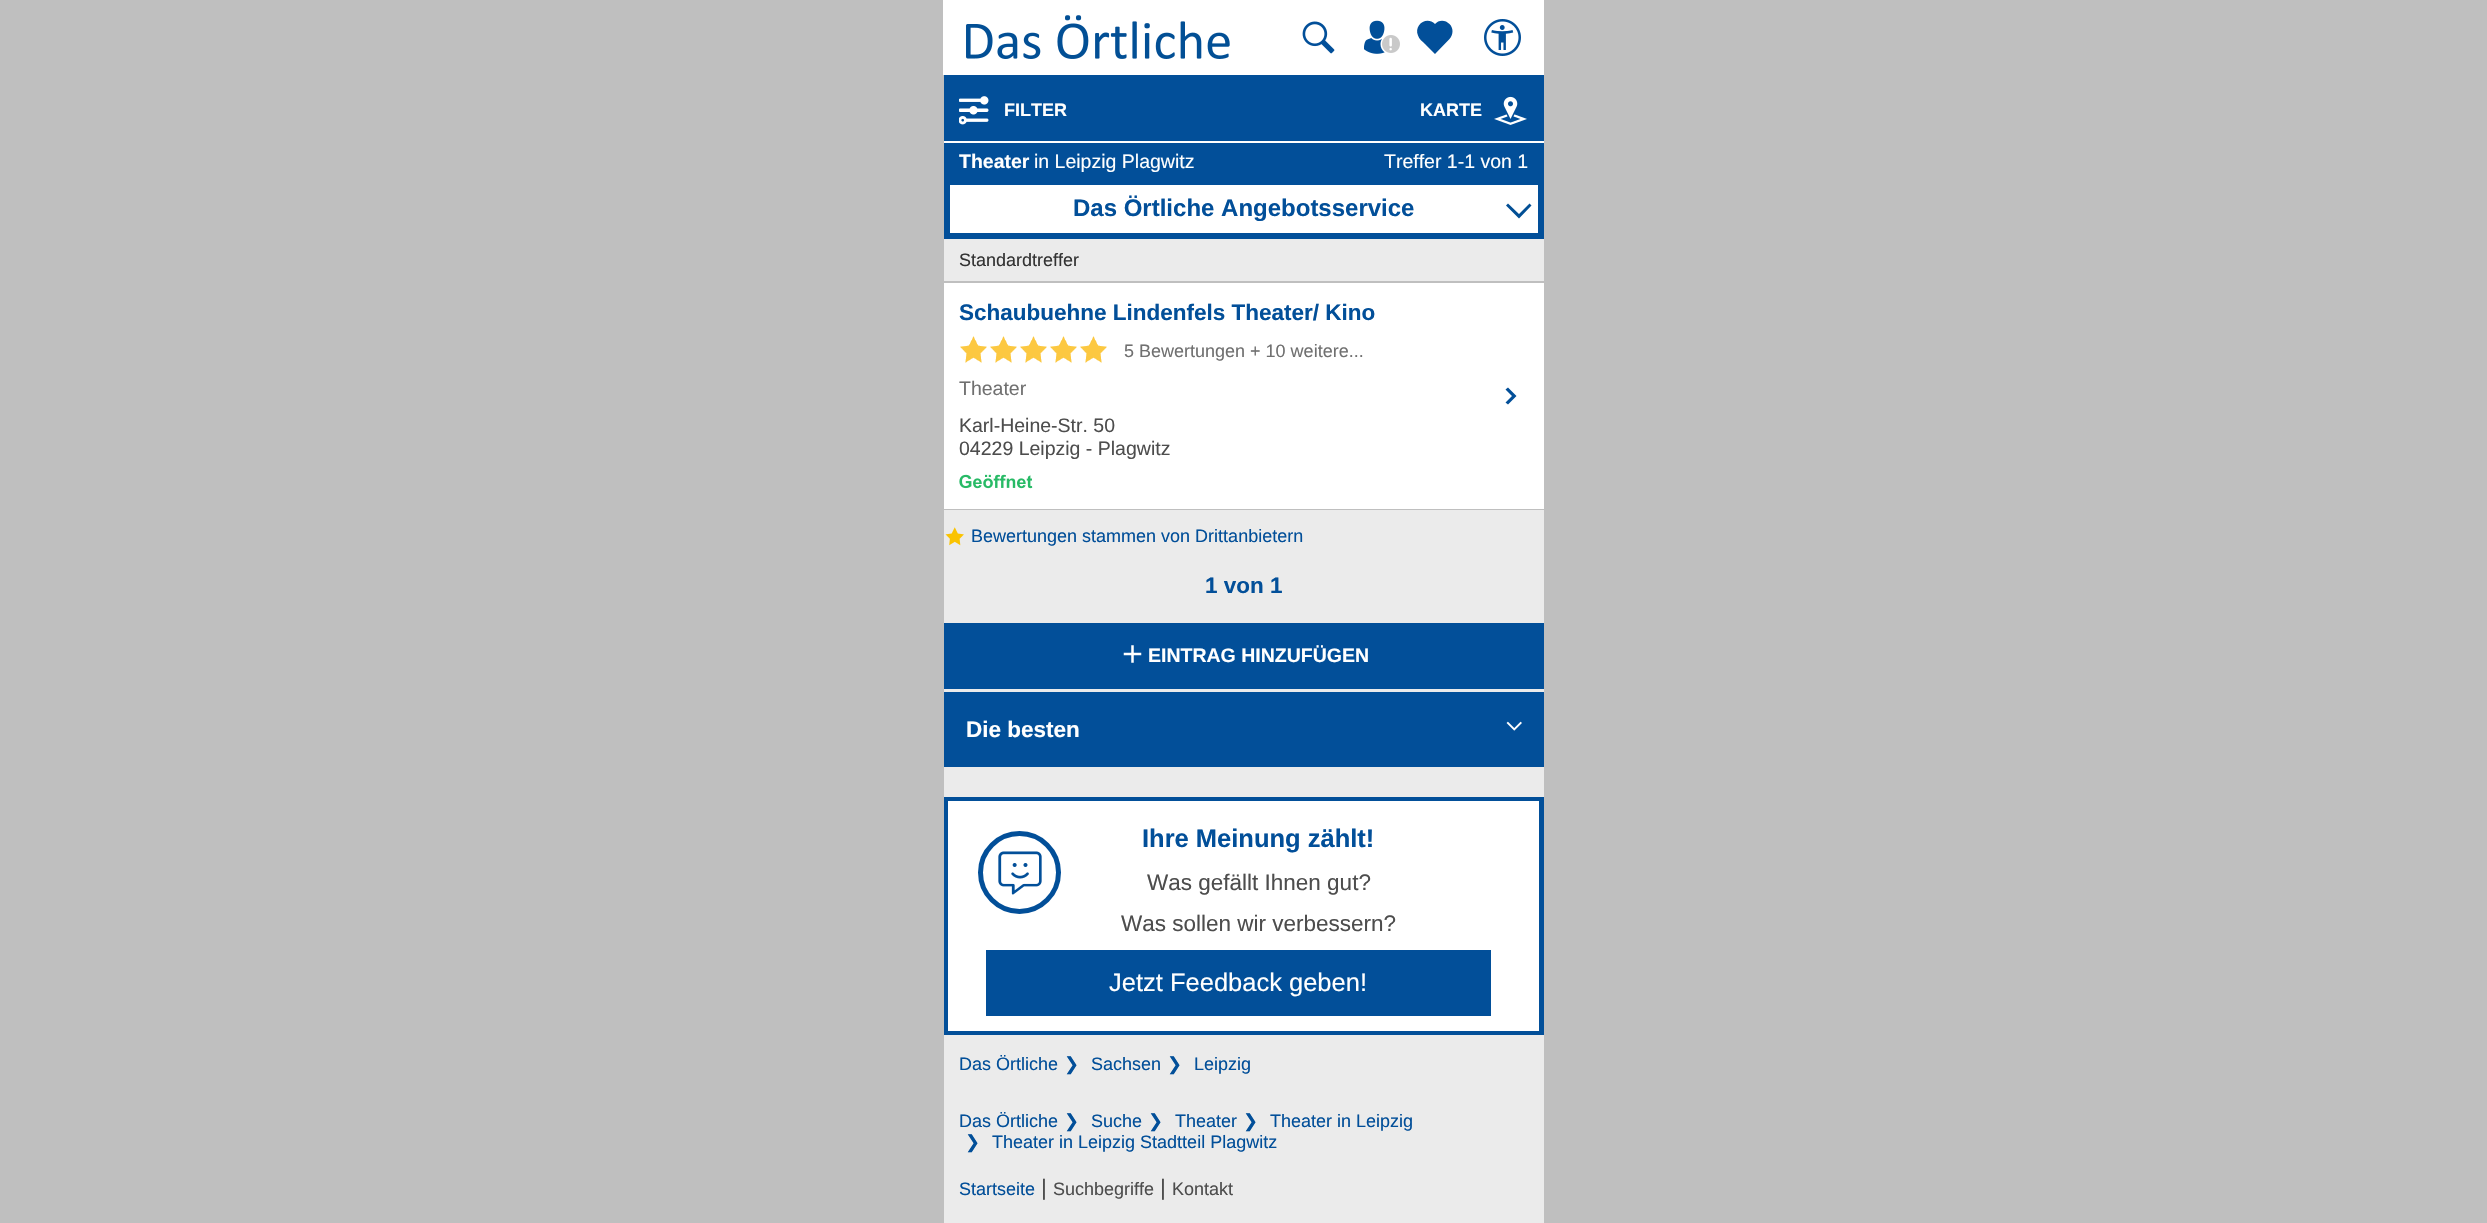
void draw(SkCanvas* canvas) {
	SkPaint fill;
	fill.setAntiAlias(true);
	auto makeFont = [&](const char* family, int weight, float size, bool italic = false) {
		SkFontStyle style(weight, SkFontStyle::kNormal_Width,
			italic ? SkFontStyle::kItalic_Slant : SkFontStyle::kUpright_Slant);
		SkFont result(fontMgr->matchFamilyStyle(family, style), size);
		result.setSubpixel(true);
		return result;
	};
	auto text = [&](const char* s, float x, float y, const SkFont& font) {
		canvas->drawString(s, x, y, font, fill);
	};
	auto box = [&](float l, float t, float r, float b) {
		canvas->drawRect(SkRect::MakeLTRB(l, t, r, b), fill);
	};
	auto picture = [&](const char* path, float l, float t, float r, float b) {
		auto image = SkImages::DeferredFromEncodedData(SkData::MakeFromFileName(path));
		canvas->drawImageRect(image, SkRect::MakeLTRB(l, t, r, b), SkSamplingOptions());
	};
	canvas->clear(0xFFBFBFBF);
	fill.setColor(0xFFFFFFFF);
	box(943, 0, 1544, 75);
	picture("image0.png", 966, 15, 1230, 59);
	picture("image1.png", 1302, 21, 1335, 54);
	picture("image2.png", 1364, 20, 1400, 54);
	fill.setColor(0xFF024F99);
	canvas->drawPath(SkPathBuilder().moveTo(1449.5f, 24).cubicTo(1445.5f, 19.5f, 1438.5f, 19.5f, 1435, 24).cubicTo(1427, 15.5f, 1413.5f, 24.5f, 1418, 35.5f).cubicTo(1419, 39, 1422.5f, 41.5f, 1425, 44).lineTo(1435, 54).lineTo(1449.5f, 39).cubicTo(1453.5f, 34.5f, 1453.5f, 28, 1449.5f, 24).close().detach(), fill);
	picture("image3.png", 1484, 19, 1521, 56);
	box(944, 75, 1544, 1035);
	picture("image4.png", 959, 96, 989, 125);
	picture("image5.png", 1494, 96, 1527, 125);
	fill.setColor(0xFFFFFFFF);
	box(944, 141, 1544, 143);
	fill.setColor(0xFFEBEBEB);
	box(944, 239, 1544, 281);
	fill.setColor(0xFFFFFFFF);
	box(950, 185, 1538, 233);
	fill.setColor(0xFF024F95);
	canvas->drawPath(SkPathBuilder().moveTo(1508, 203.5f).lineTo(1519, 214).lineTo(1529.5f, 203.5f).lineTo(1531.5f, 205.5f).lineTo(1519, 218.5f).lineTo(1506, 205.5f).close().detach(), fill);
	fill.setColor(0xFFFFFFFF);
	box(944, 283, 1544, 509);
	fill.setColor(0xFF024F99);
	canvas->drawPath(SkPathBuilder().moveTo(1508, 404.5f).lineTo(1505.5f, 402.5f).lineTo(1512, 396).lineTo(1505.5f, 389.5f).lineTo(1508, 387.5f).lineTo(1516.5f, 396).close().detach(), fill);
	fill.setColor(0xFFBFBFBF);
	box(944, 281, 1544, 283);
	box(944, 509, 1544, 510);
	picture("image6.png", 960, 336, 987, 363);
	picture("image6.png", 990, 336, 1017, 363);
	picture("image6.png", 1020, 336, 1047, 363);
	picture("image6.png", 1050, 336, 1077, 363);
	picture("image6.png", 1080, 336, 1107, 363);
	picture("image7.png", 959, 474, 1033, 489);
	fill.setColor(0xFFEBEBEB);
	box(944, 510, 1544, 623);
	picture("image8.png", 945, 527, 964, 546);
	picture("image9.png", 1123, 645, 1142, 663);
	box(944, 689, 1544, 692);
	picture("image10.png", 1506, 721, 1522, 731);
	box(944, 767, 1544, 797);
	fill.setColor(0xFFFFFFFF);
	box(948, 801, 1539, 1031);
	fill.setStyle(SkPaint::kStroke_Style);
	fill.setStrokeWidth(5);
	fill.setColor(0xFF024F99);
	canvas->drawCircle(1019.5f, 872.5f, 39, fill);
	picture("image11.png", 998, 851, 1042, 895);
	fill.setStyle(SkPaint::kFill_Style);
	box(986, 950, 1491, 1016);
	fill.setColor(0xFFEBEBEB);
	box(944, 1035, 1544, 1223);
	auto font1 = makeFont("Liberation Sans", 700, 18);
	fill.setColor(0xFFFFFFFF);
	text("FILTER", 1004, 116, font1);
	text("KARTE", 1420, 116, font1);
	canvas->save();
	canvas->clipRect(SkRect::MakeLTRB(959, 143, 1304, 180));
	auto font2 = makeFont("Liberation Sans", 700, 19.5f);
	text("Theater", 959, 168, font2);
	canvas->restore();
	auto font3 = makeFont("Liberation Sans", 400, 19.5f);
	text("in Leipzig Plagwitz", 1034, 168, font3);
	text("Treffer 1-1 von 1", 1384, 168, font3);
	auto font4 = makeFont("Liberation Sans", 700, 24);
	fill.setColor(0xFF024F99);
	text("Das Örtliche Angebotsservice", 1073, 216, font4);
	auto font5 = makeFont("Liberation Sans", 400, 18);
	fill.setColor(0xFF333333);
	text("Standardtreffer", 959, 266, font5);
	auto font6 = makeFont("Liberation Sans", 700, 22.5f);
	fill.setColor(0xFF024F99);
	text("Schaubuehne Lindenfels Theater/ Kino", 959, 320, font6);
	fill.setColor(0xFF707070);
	text("5 Bewertungen + 10 weitere...", 1124, 357, font5);
	text("Theater", 959, 395, font3);
	fill.setColor(0xFF4D4D4D);
	text("Karl-Heine-Str. 50", 959, 432, font3);
	text("04229 Leipzig - Plagwitz", 959, 455, font3);
	fill.setColor(0xFF024F99);
	text("Bewertungen stammen von Drittanbietern", 971, 542, font5);
	text("1 von 1", 1205, 593, font6);
	fill.setColor(0xFFFFFFFF);
	text("EINTRAG HINZUFÜGEN", 1148, 662, font2);
	text("Die besten", 966, 737, font6);
	auto font7 = makeFont("Liberation Sans", 700, 25.5f);
	fill.setColor(0xFF024F99);
	text("Ihre Meinung zählt!", 1142, 847, font7);
	auto font8 = makeFont("Liberation Sans", 400, 22.5f);
	fill.setColor(0xFF4D4D4D);
	text("Was gefällt Ihnen gut?", 1147, 890, font8);
	text("Was sollen wir verbessern?", 1121, 931, font8);
	auto font9 = makeFont("Liberation Sans", 400, 25.5f);
	fill.setColor(0xFFFFFFFF);
	text("Jetzt Feedback geben!", 1109, 991, font9);
	fill.setColor(0xFF024F99);
	text("Das Örtliche", 959, 1070, font5);
	auto font10 = makeFont("DejaVu Sans", 400, 18);
	text("❯", 1064, 1070, font10);
	text("Sachsen", 1091, 1070, font5);
	text("❯", 1167, 1070, font10);
	text("Leipzig", 1194, 1070, font5);
	text("Das Örtliche", 959, 1127, font5);
	text("❯", 1064, 1127, font10);
	text("Suche", 1091, 1127, font5);
	text("❯", 1148, 1127, font10);
	text("Theater", 1175, 1127, font5);
	text("❯", 1243, 1127, font10);
	text("Theater in Leipzig", 1270, 1127, font5);
	text("❯", 965, 1148, font10);
	text("Theater in Leipzig Stadtteil Plagwitz", 992, 1148, font5);
	text("Startseite", 959, 1195, font5);
	fill.setColor(0xFF4D4D4D);
	text("|", 1041, 1195, font8);
	text("Suchbegriffe", 1053, 1195, font5);
	text("|", 1160, 1195, font8);
	text("Kontakt", 1172, 1195, font5);
}
